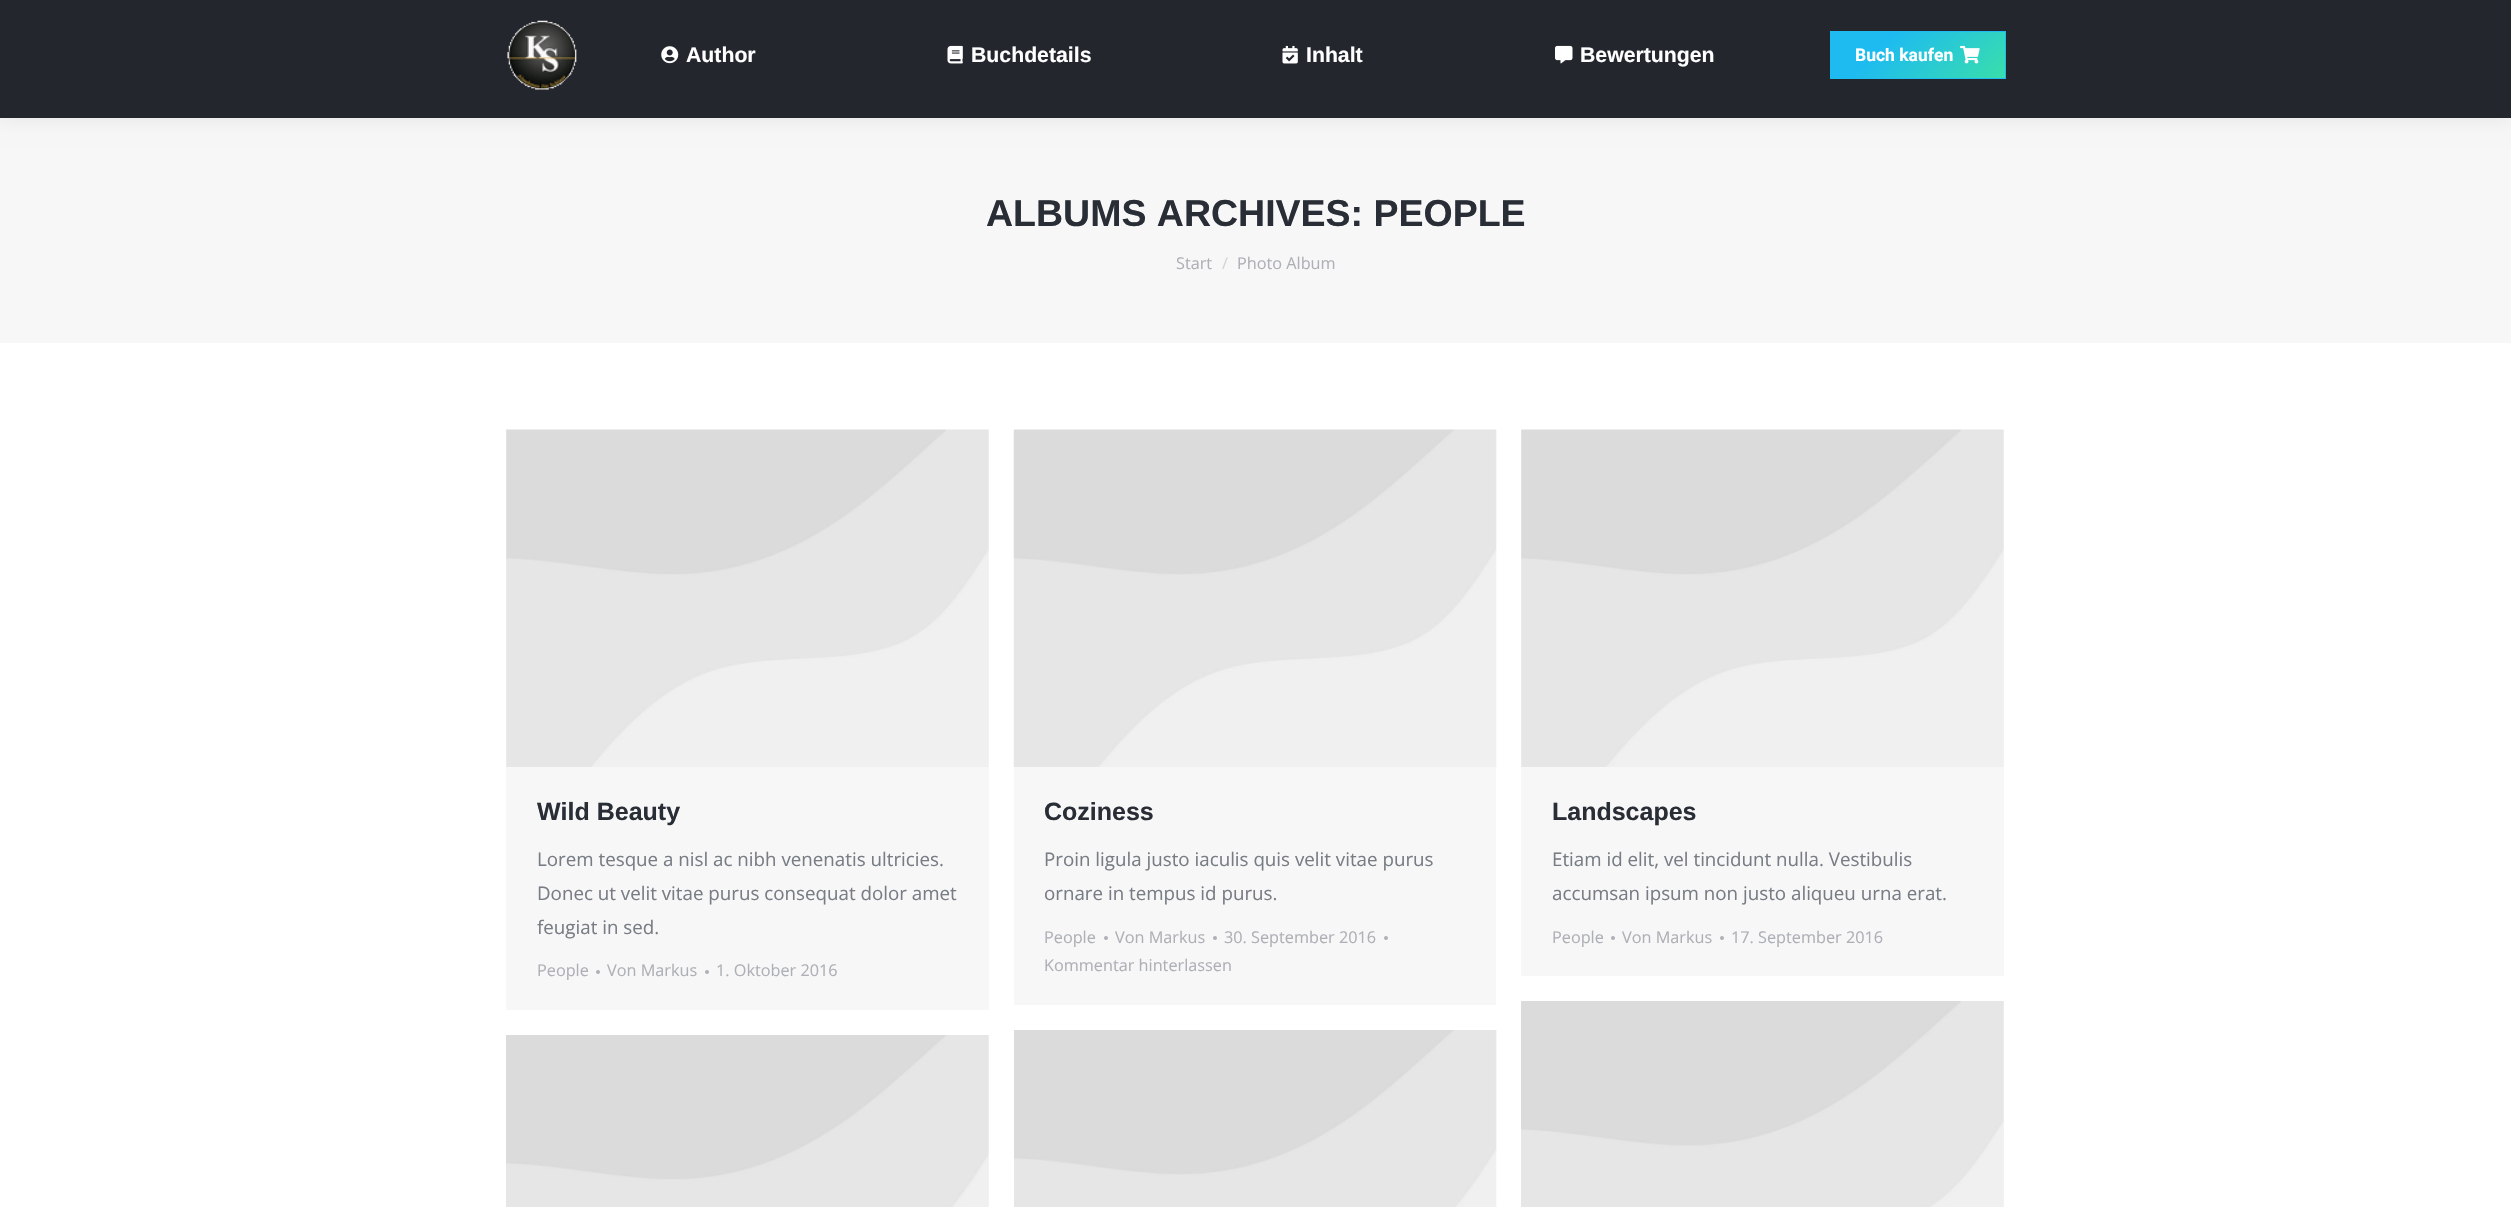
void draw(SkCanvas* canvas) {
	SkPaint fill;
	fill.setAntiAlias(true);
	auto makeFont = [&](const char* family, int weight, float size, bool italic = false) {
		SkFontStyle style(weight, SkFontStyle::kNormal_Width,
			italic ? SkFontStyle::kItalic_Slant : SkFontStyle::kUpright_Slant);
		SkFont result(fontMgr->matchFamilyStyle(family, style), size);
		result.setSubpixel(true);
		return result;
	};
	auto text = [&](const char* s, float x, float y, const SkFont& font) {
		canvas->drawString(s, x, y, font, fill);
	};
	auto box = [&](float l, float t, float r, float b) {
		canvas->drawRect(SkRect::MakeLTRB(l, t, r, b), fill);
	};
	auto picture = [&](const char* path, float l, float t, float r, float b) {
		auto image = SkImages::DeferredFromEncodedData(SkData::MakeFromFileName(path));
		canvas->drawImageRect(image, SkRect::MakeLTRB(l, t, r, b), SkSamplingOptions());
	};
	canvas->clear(0xFFFFFFFF);
	fill.setColor(0xFFF7F7F7);
	box(0, 118, 2511, 343);
	fill.setColor(0x12000000);
	fill.setMaskFilter(SkMaskFilter::MakeBlur(kNormal_SkBlurStyle, 9.5f));
	canvas->drawRect(SkRect::MakeLTRB(-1, -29, 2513, 119), fill);
	fill.setMaskFilter(nullptr);
	fill.setColor(0xFF23262D);
	box(0, 0, 2511, 118);
	picture("image0.png", 507, 20, 577, 90);
	picture("image1.png", 661, 46, 679, 64);
	picture("image2.png", 947, 45, 963, 64);
	picture("image3.png", 1282, 45, 1298, 64);
	picture("image4.png", 1555, 45, 1573, 64);
	{
		const SkColor colors[] = {0xFF1EBBF0, 0xFF39DFAA};
		const float stops[] = {0.3f, 1};
		const SkPoint ends[] = {{1862, -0.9f}, {1974, 111}};
		fill.setShader(SkGradientShader::MakeLinear(ends, colors, stops, 2, SkTileMode::kClamp));
		fill.setAlpha(255);
	}
	box(1831, 32, 2005, 78);
	fill.setStyle(SkPaint::kStroke_Style);
	fill.setStrokeWidth(1);
	fill.setShader(nullptr);
	fill.setColor(0xFF1EBBF0);
	canvas->drawRect(SkRect::MakeLTRB(1830.5f, 31.5f, 2005.5f, 78.5f), fill);
	picture("image5.png", 1960, 45, 1980, 64);
	fill.setStyle(SkPaint::kFill_Style);
	fill.setColor(0xFFF7F7F7);
	box(506, 430, 989, 1010);
	picture("image6.png", 506, 429, 989, 767);
	fill.setColor(0xFFADB0B6);
	canvas->drawCircle(598, 972, 2, fill);
	canvas->drawCircle(707, 972, 2, fill);
	fill.setColor(0xFFF7F7F7);
	box(1014, 430, 1496, 1005);
	picture("image7.png", 1013, 429, 1497, 767);
	fill.setColor(0xFFADB0B6);
	canvas->drawCircle(1106, 938, 2, fill);
	canvas->drawCircle(1215, 938, 2, fill);
	canvas->drawCircle(1386, 938, 2, fill);
	fill.setColor(0xFFF7F7F7);
	box(1521, 430, 2004, 976);
	picture("image8.png", 1521, 429, 2004, 767);
	fill.setColor(0xFFADB0B6);
	canvas->drawCircle(1613, 938, 2, fill);
	canvas->drawCircle(1722, 938, 2, fill);
	fill.setColor(0xFFF7F7F7);
	box(988, 1035, 989, 1207);
	picture("image9.png", 506, 1035, 989, 1207);
	picture("image10.png", 1014, 1030, 1497, 1207);
	box(2003, 1001, 2004, 1207);
	picture("image11.png", 1521, 1001, 2004, 1207);
	auto font1 = makeFont("Liberation Sans", 700, 21.25f);
	fill.setColor(0xFFFFFFFF);
	text("Author", 686, 62, font1);
	text("Buchdetails", 971, 62, font1);
	text("Inhalt", 1306, 62, font1);
	text("Bewertungen", 1580, 62, font1);
	auto font2 = makeFont("Roboto", 700, 17.5f);
	text("Buch kaufen", 1855, 61, font2);
	auto font3 = makeFont("Liberation Sans", 700, 37.5f);
	fill.setColor(0xFF292E36);
	text("ALBUMS ARCHIVES: PEOPLE", 986, 226, font3);
	auto font4 = makeFont("Open Sans", 400, 16.25f);
	fill.setColor(0xFFADB0B6);
	text("Start", 1176, 269, font4);
	fill.setColor(0xFFD2D4D7);
	text("/", 1222, 269, font4);
	fill.setColor(0xFFADB0B6);
	text("Photo Album", 1237, 269, font4);
	auto font5 = makeFont("Liberation Sans", 700, 25);
	fill.setColor(0xFF292E36);
	text("Wild Beauty", 537, 820, font5);
	auto font6 = makeFont("Open Sans", 400, 18.75f);
	fill.setColor(0xFF787D85);
	text("Lorem tesque a nisl ac nibh venenatis ultricies.", 537, 866, font6);
	text("Donec ut velit vitae purus consequat dolor amet", 537, 900, font6);
	text("feugiat in sed.", 537, 934, font6);
	fill.setColor(0xFFADB0B6);
	text("People", 537, 976, font4);
	text("Von Markus", 607, 976, font4);
	text("1. Oktober 2016", 716, 976, font4);
	fill.setColor(0xFF292E36);
	text("Coziness", 1044, 820, font5);
	fill.setColor(0xFF787D85);
	text("Proin ligula justo iaculis quis velit vitae purus", 1044, 866, font6);
	text("ornare in tempus id purus.", 1044, 900, font6);
	fill.setColor(0xFFADB0B6);
	text("People", 1044, 943, font4);
	text("Von Markus", 1115, 943, font4);
	text("30. September 2016", 1224, 943, font4);
	text("Kommentar hinterlassen", 1044, 971, font4);
	fill.setColor(0xFF292E36);
	text("Landscapes", 1552, 820, font5);
	fill.setColor(0xFF787D85);
	text("Etiam id elit, vel tincidunt nulla. Vestibulis", 1552, 866, font6);
	text("accumsan ipsum non justo aliqueu urna erat.", 1552, 900, font6);
	fill.setColor(0xFFADB0B6);
	text("People", 1552, 943, font4);
	text("Von Markus", 1622, 943, font4);
	text("17. September 2016", 1731, 943, font4);
}
